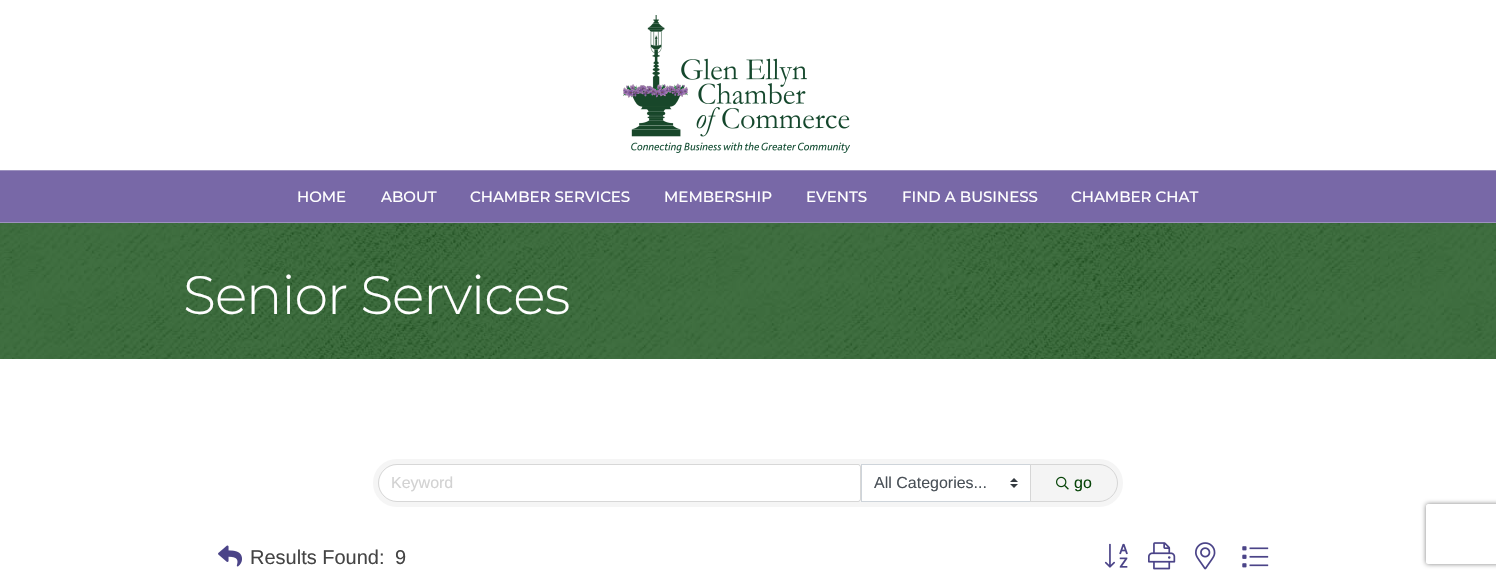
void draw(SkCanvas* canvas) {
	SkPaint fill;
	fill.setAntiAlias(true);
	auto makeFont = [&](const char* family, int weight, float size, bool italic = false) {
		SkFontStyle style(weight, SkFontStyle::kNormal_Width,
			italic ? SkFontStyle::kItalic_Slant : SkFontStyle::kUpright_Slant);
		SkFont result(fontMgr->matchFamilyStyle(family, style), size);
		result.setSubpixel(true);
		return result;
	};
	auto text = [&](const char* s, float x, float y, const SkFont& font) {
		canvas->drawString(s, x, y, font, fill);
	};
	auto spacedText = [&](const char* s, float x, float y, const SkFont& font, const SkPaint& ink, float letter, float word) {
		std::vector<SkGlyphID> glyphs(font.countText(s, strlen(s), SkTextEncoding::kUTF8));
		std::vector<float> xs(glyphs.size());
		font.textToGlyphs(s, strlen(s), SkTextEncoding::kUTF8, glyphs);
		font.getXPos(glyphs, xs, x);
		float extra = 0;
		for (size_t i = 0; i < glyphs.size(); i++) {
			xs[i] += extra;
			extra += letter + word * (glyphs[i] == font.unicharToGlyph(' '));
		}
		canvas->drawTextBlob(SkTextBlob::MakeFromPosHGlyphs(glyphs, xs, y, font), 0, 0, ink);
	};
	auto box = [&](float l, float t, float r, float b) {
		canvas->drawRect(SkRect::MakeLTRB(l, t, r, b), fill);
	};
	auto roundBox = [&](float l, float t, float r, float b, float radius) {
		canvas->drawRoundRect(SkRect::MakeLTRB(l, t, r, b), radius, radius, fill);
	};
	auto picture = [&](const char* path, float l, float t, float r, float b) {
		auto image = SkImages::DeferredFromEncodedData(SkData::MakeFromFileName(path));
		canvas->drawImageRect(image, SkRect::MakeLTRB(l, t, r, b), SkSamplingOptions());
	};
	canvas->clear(0xFFFFFFFF);
	picture("image0.png", 623, 15, 850, 153);
	fill.setColor(0xFF7868A7);
	box(0, 171, 1496, 222);
	fill.setColor(0xFF9D92BF);
	box(0, 170, 1496, 171);
	box(0, 222, 1496, 223);
	picture("image1.png", 0, 223, 1496, 359);
	fill.setColor(0xFFF5F5F5);
	roundBox(373, 459, 1123, 507, 24);
	fill.setColor(0xFFFFFFFF);
	canvas->drawPath(SkPathBuilder().moveTo(397, 465).lineTo(858, 465).cubicTo(859, 465, 860, 466, 860, 467).lineTo(860, 499).cubicTo(860, 500, 859, 501, 858, 501).lineTo(397, 501).cubicTo(387, 501, 379, 493, 379, 483).cubicTo(379, 473, 387, 465, 397, 465).close().detach(), fill);
	fill.setStyle(SkPaint::kStroke_Style);
	fill.setStrokeWidth(1);
	fill.setColor(0x1F000000);
	canvas->drawPath(SkPathBuilder().moveTo(397, 464.5f).lineTo(858, 464.5f).cubicTo(859.5f, 464.5f, 860.5f, 465.5f, 860.5f, 467).lineTo(860.5f, 499).cubicTo(860.5f, 500.5f, 859.5f, 501.5f, 858, 501.5f).lineTo(397, 501.5f).cubicTo(387, 501.5f, 378.5f, 493, 378.5f, 483).cubicTo(378.5f, 473, 387, 464.5f, 397, 464.5f).close().detach(), fill);
	fill.setStyle(SkPaint::kFill_Style);
	fill.setColor(0xFFFFFFFF);
	box(862, 465, 1030, 501);
	picture("image2.png", 1010, 478, 1018, 488);
	fill.setStyle(SkPaint::kStroke_Style);
	fill.setColor(0xFFCED4DA);
	canvas->drawRect(SkRect::MakeLTRB(861.5f, 464.5f, 1030.5f, 501.5f), fill);
	fill.setStyle(SkPaint::kFill_Style);
	fill.setColor(0xFFF4F4F4);
	canvas->drawPath(SkPathBuilder().moveTo(1030.5f, 464.5f).lineTo(1099, 464.5f).cubicTo(1109, 464.5f, 1117.5f, 473, 1117.5f, 483).cubicTo(1117.5f, 493, 1109, 501.5f, 1099, 501.5f).lineTo(1030.5f, 501.5f).close().detach(), fill);
	fill.setStyle(SkPaint::kStroke_Style);
	fill.setColor(0xFFD6D6D6);
	canvas->drawPath(SkPathBuilder().moveTo(1030.5f, 464.5f).lineTo(1099, 464.5f).cubicTo(1109, 464.5f, 1117.5f, 473, 1117.5f, 483).cubicTo(1117.5f, 493, 1109, 501.5f, 1099, 501.5f).lineTo(1030.5f, 501.5f).close().detach(), fill);
	picture("image3.png", 1056, 476, 1069, 490);
	picture("image4.png", 218, 545, 242, 567);
	picture("image5.png", 1104, 543, 1128, 568);
	picture("image6.png", 1148, 542, 1176, 570);
	picture("image7.png", 1195, 542, 1216, 570);
	picture("image8.png", 1242, 546, 1269, 568);
	canvas->save();
	canvas->clipPath(SkPathBuilder(SkPathFillType::kEvenOdd).moveTo(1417, 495).lineTo(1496, 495).lineTo(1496, 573).lineTo(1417, 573).close().moveTo(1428, 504).lineTo(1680, 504).cubicTo(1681, 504, 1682, 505, 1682, 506).lineTo(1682, 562).cubicTo(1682, 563, 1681, 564, 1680, 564).lineTo(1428, 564).cubicTo(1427, 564, 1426, 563, 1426, 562).lineTo(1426, 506).cubicTo(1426, 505, 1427, 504, 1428, 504).close().detach(), true);
	fill.setStyle(SkPaint::kFill_Style);
	fill.setColor(0xFF808080);
	fill.setMaskFilter(SkMaskFilter::MakeBlur(kNormal_SkBlurStyle, 2.5f));
	canvas->drawRoundRect(SkRect::MakeLTRB(1426, 504, 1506, 564), 2, 2, fill);
	fill.setMaskFilter(nullptr);
	canvas->restore();
	auto font1 = makeFont("Montserrat", 500, 15);
	fill.setColor(0xFFFFFFFF);
	text("HOME", 297, 202, font1);
	text("ABOUT", 381, 202, font1);
	text("CHAMBER SERVICES", 470, 202, font1);
	text("MEMBERSHIP", 664, 202, font1);
	text("EVENTS", 806, 202, font1);
	text("FIND A BUSINESS", 902, 202, font1);
	text("CHAMBER CHAT", 1071, 202, font1);
	auto font2 = makeFont("Montserrat", 300, 54);
	spacedText("Senior Services", 183, 314, font2, fill, -1, 0);
	auto font3 = makeFont("Liberation Sans", 400, 16);
	fill.setColor(0xFFD2D2D2);
	text("Keyword", 391, 488, font3);
	fill.setColor(0xFF495057);
	text("All Categories...", 874, 488, font3);
	fill.setColor(0xFF074408);
	text("go", 1074, 488, font3);
	auto font4 = makeFont("Liberation Sans", 400, 20);
	fill.setColor(0xFF444444);
	text("Results Found:", 250, 564, font4);
	text("9", 395, 564, font4);
}
